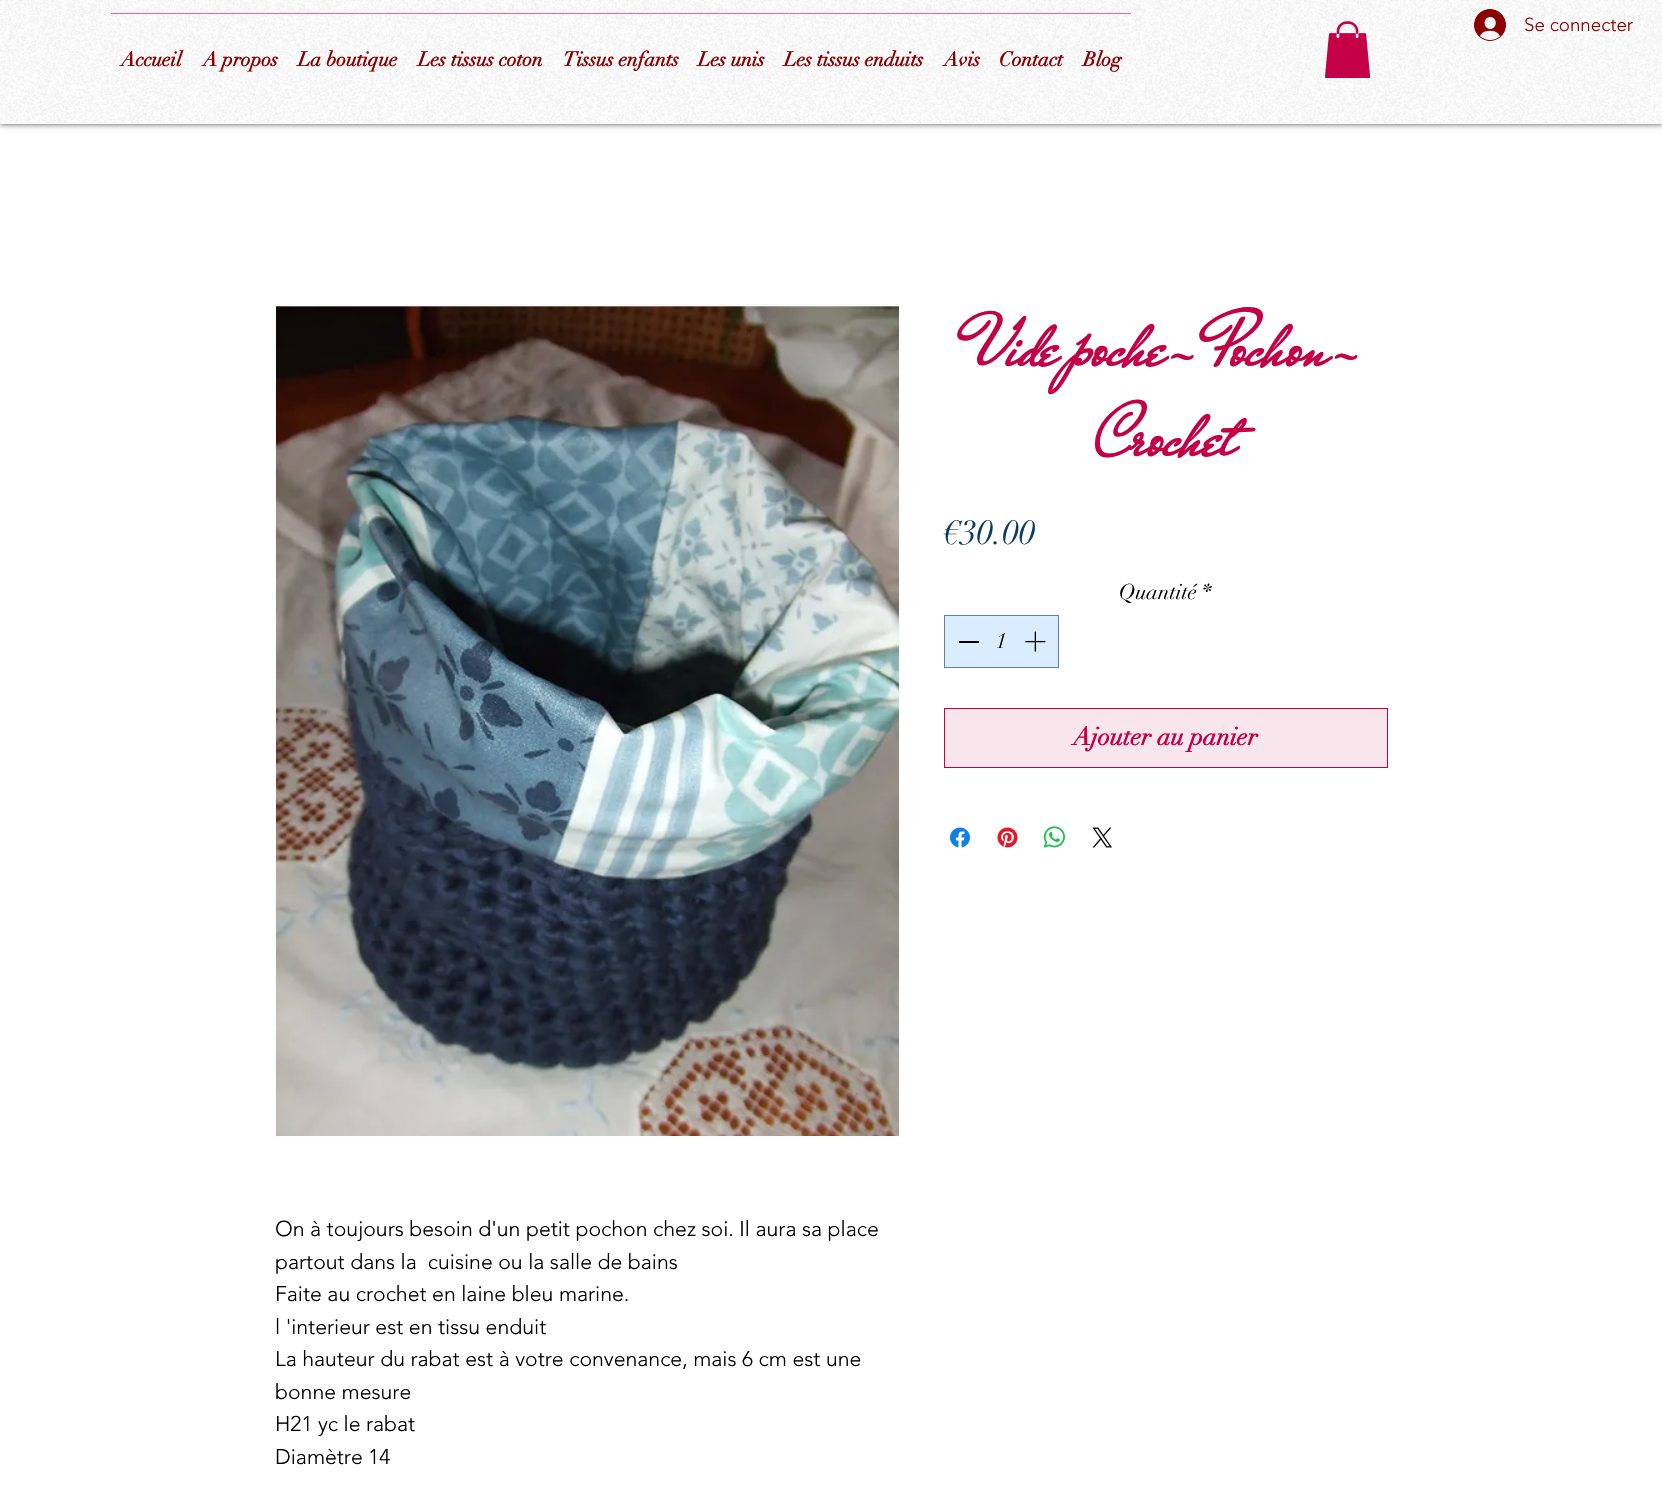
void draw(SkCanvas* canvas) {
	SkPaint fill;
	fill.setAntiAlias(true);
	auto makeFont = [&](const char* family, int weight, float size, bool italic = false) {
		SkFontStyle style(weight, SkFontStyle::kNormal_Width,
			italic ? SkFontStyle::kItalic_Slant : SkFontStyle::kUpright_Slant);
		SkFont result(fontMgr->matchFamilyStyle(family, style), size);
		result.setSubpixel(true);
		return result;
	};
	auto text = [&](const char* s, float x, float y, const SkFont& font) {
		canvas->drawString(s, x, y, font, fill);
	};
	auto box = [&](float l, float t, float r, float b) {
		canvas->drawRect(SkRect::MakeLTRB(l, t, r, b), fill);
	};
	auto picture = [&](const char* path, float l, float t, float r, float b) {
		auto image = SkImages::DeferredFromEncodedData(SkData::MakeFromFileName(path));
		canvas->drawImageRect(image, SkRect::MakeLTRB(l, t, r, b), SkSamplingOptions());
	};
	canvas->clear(0xFFFFFFFF);
	fill.setColor(0xB3000000);
	fill.setMaskFilter(SkMaskFilter::MakeBlur(kNormal_SkBlurStyle, 3));
	canvas->drawRect(SkRect::MakeLTRB(0, 0, 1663, 124), fill);
	fill.setMaskFilter(nullptr);
	fill.setColor(0xFFFFFFFF);
	box(0, 0, 1662, 124);
	picture("image0.png", 0, 0, 1662, 124);
	fill.setColor(0xFFF2668F);
	box(111, 13, 1131, 14);
	picture("image1.png", 1324, 21, 1371, 78);
	picture("image2.png", 1474, 9, 1506, 41);
	fill.setColor(0xFFDAEDFF);
	canvas->drawRect(SkRect::MakeLTRB(944.5f, 615.5f, 1058.5f, 667.5f), fill);
	fill.setStyle(SkPaint::kStroke_Style);
	fill.setStrokeWidth(1);
	fill.setColor(0xFF5E83A0);
	canvas->drawRect(SkRect::MakeLTRB(944.5f, 615.5f, 1058.5f, 667.5f), fill);
	fill.setStyle(SkPaint::kFill_Style);
	fill.setColor(0xFF000000);
	box(959, 641, 979, 643);
	picture("image3.png", 1025, 631, 1046, 652);
	fill.setColor(0xFFF9E6ED);
	canvas->drawRect(SkRect::MakeLTRB(944.5f, 708.5f, 1387.5f, 767.5f), fill);
	fill.setStyle(SkPaint::kStroke_Style);
	fill.setColor(0xFFC40047);
	canvas->drawRect(SkRect::MakeLTRB(944.5f, 708.5f, 1387.5f, 767.5f), fill);
	picture("image4.png", 950, 827, 970, 848);
	picture("image5.png", 997, 827, 1018, 848);
	picture("image6.png", 1043, 826, 1065, 848);
	picture("image7.png", 1092, 827, 1112, 848);
	fill.setColor(0xFFF9F9F9);
	canvas->drawRect(SkRect::MakeLTRB(275.5f, 304.5f, 899.5f, 1137.5f), fill);
	picture("image8.png", 276, 306, 899, 1136);
	auto font1 = makeFont("didot", 700, 20);
	fill.setStyle(SkPaint::kFill_Style);
	fill.setColor(0xFF8B0000);
	text("Accueil", 121, 66, font1);
	text("A propos", 203, 66, font1);
	text("La boutique", 298, 66, font1);
	text("Les tissus coton", 418, 66, font1);
	text("Tissus enfants", 563, 66, font1);
	text("Les unis", 698, 66, font1);
	text("Les tissus enduits", 784, 66, font1);
	text("Avis", 944, 66, font1);
	text("Contact", 999, 66, font1);
	text("Blog", 1083, 66, font1);
	auto font2 = makeFont("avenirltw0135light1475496", 300, 18.75f);
	text("Se connecter", 1524, 31, font2);
	auto font3 = makeFont("Mr De Haviland", 700, 75);
	fill.setColor(0xFFC40047);
	text("Vide poche- Pochon-", 971, 365, font3);
	text("Crochet", 1095, 455, font3);
	auto font4 = makeFont("didot", 400, 34);
	fill.setColor(0xFF0C3C60);
	text("€30.00", 944, 544, font4);
	auto font5 = makeFont("didot", 400, 21.25f);
	fill.setColor(0xFF000000);
	text("Quantité *", 1119, 599, font5);
	text("1", 996, 648, font5);
	auto font6 = makeFont("didot", 700, 25);
	fill.setColor(0xFFC40047);
	text("Ajouter au panier", 1073, 745, font6);
	auto font7 = makeFont("avenirltw0135light1475496", 300, 21.25f);
	fill.setColor(0xFF000000);
	text("On à toujours besoin d'un petit pochon chez soi. Il aura sa place", 275, 1236, font7);
	text("partout dans la  cuisine ou la salle de bains", 275, 1269, font7);
	text("Faite au crochet en laine bleu marine.", 275, 1301, font7);
	text("l 'interieur est en tissu enduit", 275, 1334, font7);
	text("La hauteur du rabat est à votre convenance, mais 6 cm est une", 275, 1366, font7);
	text("bonne mesure", 275, 1399, font7);
	text("H21 yc le rabat", 275, 1431, font7);
	text("Diamètre 14", 275, 1464, font7);
}
